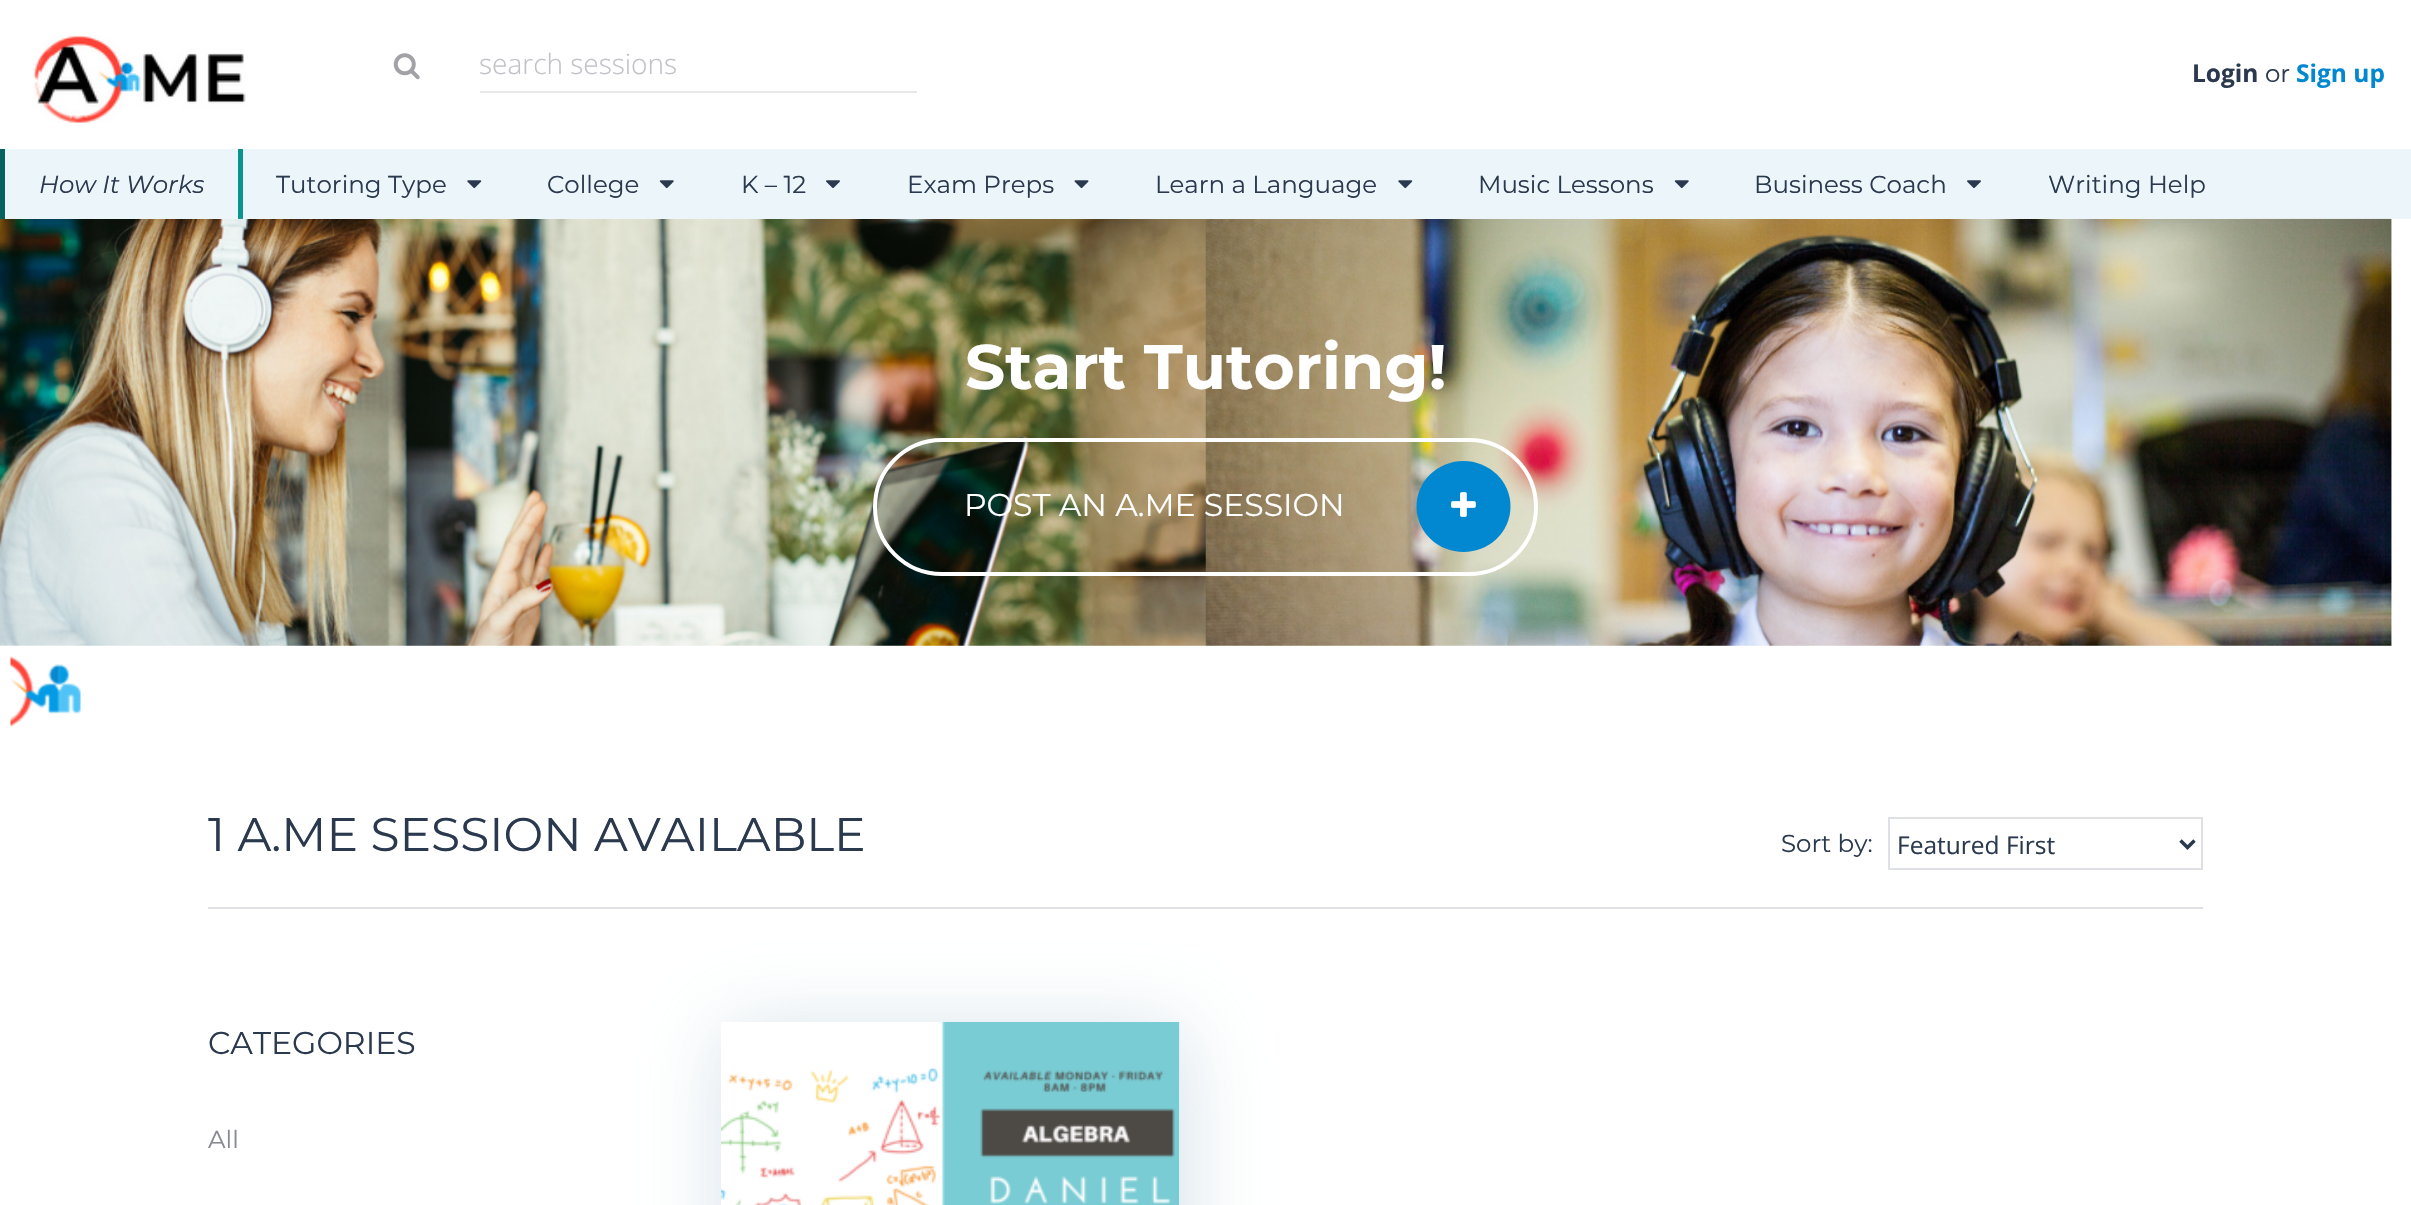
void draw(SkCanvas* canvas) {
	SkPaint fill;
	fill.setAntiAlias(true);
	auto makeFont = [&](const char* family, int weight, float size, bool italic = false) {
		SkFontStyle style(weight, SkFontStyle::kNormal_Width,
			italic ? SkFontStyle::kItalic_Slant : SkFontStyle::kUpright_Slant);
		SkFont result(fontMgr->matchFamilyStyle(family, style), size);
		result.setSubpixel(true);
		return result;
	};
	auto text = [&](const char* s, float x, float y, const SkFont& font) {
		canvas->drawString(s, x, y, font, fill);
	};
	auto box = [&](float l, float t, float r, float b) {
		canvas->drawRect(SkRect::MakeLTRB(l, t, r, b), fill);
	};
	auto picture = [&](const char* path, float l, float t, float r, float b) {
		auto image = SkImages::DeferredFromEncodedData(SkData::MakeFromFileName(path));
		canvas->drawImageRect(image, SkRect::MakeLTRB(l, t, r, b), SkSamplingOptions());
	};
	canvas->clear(0xFFFFFFFF);
	picture("image0.png", 33, 35, 246, 123);
	picture("image1.png", 393, 53, 420, 80);
	fill.setColor(0xFFE7E8E9);
	box(480, 91, 917, 93);
	fill.setColor(0xFFECF5FA);
	box(2240, 149, 2411, 219);
	fill.setColor(0xFF0B938F);
	box(238, 149, 243, 219);
	fill.setColor(0xFF07625F);
	box(0, 149, 5, 219);
	picture("image6.png", 0, 218, 2392, 646);
	fill.setColor(0xFFECF5FA);
	box(5, 149, 238, 219);
	box(243, 149, 2240, 219);
	picture("image2.png", 467, 180, 482, 189);
	picture("image3.png", 659, 180, 674, 189);
	picture("image4.png", 826, 180, 840, 188);
	picture("image5.png", 1074, 180, 1089, 189);
	picture("image2.png", 1398, 180, 1413, 189);
	picture("image3.png", 1674, 180, 1689, 189);
	picture("image4.png", 1967, 180, 1981, 188);
	fill.setStyle(SkPaint::kStroke_Style);
	fill.setStrokeWidth(4);
	fill.setColor(0xFFFFFFFF);
	canvas->drawRoundRect(SkRect::MakeLTRB(875, 440, 1536, 574), 67, 67, fill);
	fill.setStyle(SkPaint::kFill_Style);
	fill.setColor(0xFF0288D1);
	canvas->drawOval(SkRect::MakeLTRB(1416.5f, 461, 1510.5f, 552), fill);
	picture("image7.png", 1451, 492, 1476, 517);
	fill.setColor(0xFFDFE0E6);
	box(208, 907, 2203, 909);
	fill.setStyle(SkPaint::kStroke_Style);
	fill.setStrokeWidth(2);
	canvas->drawRect(SkRect::MakeLTRB(1889, 818, 2202, 869), fill);
	fill.setStrokeWidth(3.5f);
	fill.setColor(0xFF2A394E);
	canvas->drawPath(SkPathBuilder().moveTo(2180.5f, 840.5f).lineTo(2187.5f, 847.5f).lineTo(2194.5f, 840.5f).detach(), fill);
	fill.setStyle(SkPaint::kFill_Style);
	fill.setColor(0xA6BCCFDB);
	fill.setMaskFilter(SkMaskFilter::MakeBlur(kNormal_SkBlurStyle, 37.5f));
	canvas->drawRect(SkRect::MakeLTRB(725, 1031, 1183, 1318), fill);
	fill.setMaskFilter(nullptr);
	fill.setColor(0xFFFFFFFF);
	box(1179, 1022, 1180, 1205);
	picture("image8.png", 721, 1022, 1180, 1205);
	picture("image9.png", 10, 656, 81, 727);
	auto font1 = makeFont("Open Sans", 300, 28);
	fill.setColor(0xFFC1C2C7);
	text("search sessions", 479, 74, font1);
	auto font2 = makeFont("Open Sans", 700, 24.5f);
	fill.setColor(0xFF2A394E);
	text("Login", 2192, 82, font2);
	auto font3 = makeFont("Montserrat", 400, 24.5f);
	text("or", 2265, 82, font3);
	fill.setColor(0xFF0288D1);
	text("Sign up", 2296, 82, font2);
	auto font4 = makeFont("Montserrat", 400, 24.5f, true);
	fill.setColor(0xFF2A394E);
	text("How It Works", 39, 193, font4);
	text("Tutoring Type", 276, 193, font3);
	text("College", 547, 193, font3);
	text("K – 12", 741, 193, font3);
	text("Exam Preps", 907, 193, font3);
	text("Learn a Language", 1155, 193, font3);
	text("Music Lessons", 1478, 193, font3);
	text("Business Coach", 1754, 193, font3);
	text("Writing Help", 2048, 193, font3);
	auto font5 = makeFont("Montserrat", 700, 63);
	fill.setColor(0xFFFFFFFF);
	text("Start Tutoring!", 965, 389, font5);
	auto font6 = makeFont("Montserrat", 400, 31.5f);
	text("POST AN A.ME SESSION", 964, 516, font6);
	auto font7 = makeFont("Montserrat", 400, 47.25f);
	fill.setColor(0xFF2A394E);
	text("1 A.ME SESSION AVAILABLE", 208, 851, font7);
	text("Sort by:", 1781, 852, font3);
	auto font8 = makeFont("Open Sans", 400, 24.5f);
	text("Featured First", 1897, 854, font8);
	text("CATEGORIES", 208, 1054, font6);
	fill.setColor(0xFF898A90);
	text("All", 208, 1148, font3);
}
